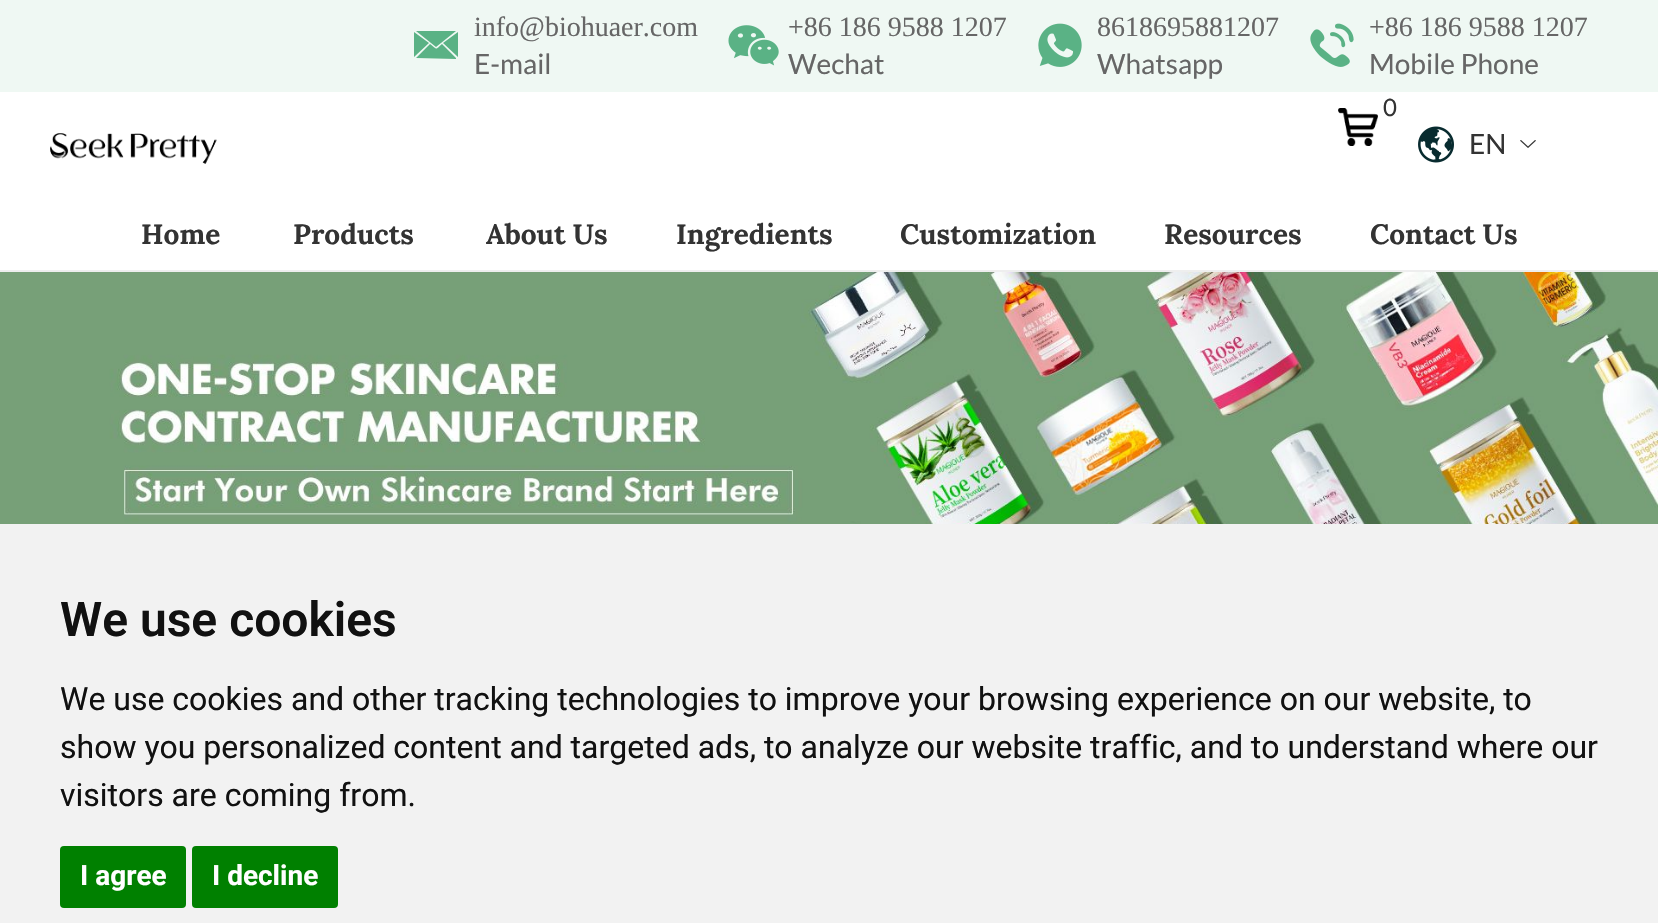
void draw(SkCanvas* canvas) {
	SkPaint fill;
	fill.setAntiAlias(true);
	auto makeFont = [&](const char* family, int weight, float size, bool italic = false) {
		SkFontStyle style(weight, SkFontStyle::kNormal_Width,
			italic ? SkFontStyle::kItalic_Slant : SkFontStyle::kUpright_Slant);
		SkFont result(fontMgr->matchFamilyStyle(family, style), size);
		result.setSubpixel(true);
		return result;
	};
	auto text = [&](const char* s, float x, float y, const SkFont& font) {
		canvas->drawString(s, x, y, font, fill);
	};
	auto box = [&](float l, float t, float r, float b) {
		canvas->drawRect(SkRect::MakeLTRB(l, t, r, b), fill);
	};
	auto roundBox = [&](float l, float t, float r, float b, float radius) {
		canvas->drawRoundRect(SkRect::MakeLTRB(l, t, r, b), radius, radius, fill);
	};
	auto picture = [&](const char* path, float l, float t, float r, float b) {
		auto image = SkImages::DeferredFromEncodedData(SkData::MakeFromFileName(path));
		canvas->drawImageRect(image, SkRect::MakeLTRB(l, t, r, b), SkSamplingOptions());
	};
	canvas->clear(0xFFFFFFFF);
	fill.setColor(0xFFEEEEEE);
	box(0, 270, 1658, 272);
	fill.setColor(0xFFEFF8F3);
	box(0, 0, 1658, 92);
	fill.setColor(0xFF5AB285);
	canvas->drawPath(SkPathBuilder().moveTo(436, 47).lineTo(416, 31).lineTo(456, 31).close().moveTo(458, 57).lineTo(443, 43).lineTo(458, 32).close().moveTo(414, 57).lineTo(414, 32).lineTo(429, 43).close().moveTo(456, 59).lineTo(416, 58).lineTo(430, 44).cubicTo(438, 50, 435, 50, 442, 44).lineTo(456, 58).close().detach(), fill);
	picture("image0.png", 728, 25, 779, 66);
	picture("image1.png", 1038, 23, 1082, 67);
	picture("image2.png", 1310, 23, 1354, 67);
	picture("image3.png", 1338, 108, 1378, 146);
	picture("image4.png", 50, 133, 217, 164);
	picture("image5.png", 1418, 126, 1454, 163);
	picture("image6.png", 1520, 140, 1536, 148);
	picture("image7.png", 0, 272, 1658, 524);
	fill.setColor(0xFFF2F2F2);
	box(0, 524, 1658, 923);
	fill.setColor(0xFF008000);
	roundBox(60, 846, 186, 908, 4);
	roundBox(192, 846, 338, 908, 4);
	auto font1 = makeFont("Liberation Serif", 400, 28);
	fill.setColor(0xFF666666);
	text("info@biohuaer.com", 474, 36, font1);
	auto font2 = makeFont("Lato", 400, 28);
	text("E-mail", 474, 74, font2);
	text("+86 186 9588 1207", 788, 36, font1);
	text("Wechat", 788, 74, font2);
	text("8618695881207", 1097, 36, font1);
	text("Whatsapp", 1097, 74, font2);
	text("+86 186 9588 1207", 1369, 36, font1);
	text("Mobile Phone", 1369, 74, font2);
	auto font3 = makeFont("Lato", 400, 24);
	fill.setColor(0xFF333333);
	text("0", 1383, 116, font3);
	text("EN", 1469, 154, font2);
	auto font4 = makeFont("Lora", 700, 28);
	text("Home", 141, 244, font4);
	text("Products", 293, 244, font4);
	text("About Us", 486, 244, font4);
	text("Ingredients", 676, 244, font4);
	text("Customization", 900, 244, font4);
	text("Resources", 1164, 244, font4);
	text("Contact Us", 1370, 244, font4);
	auto font5 = makeFont("Roboto", 600, 48);
	fill.setColor(0xFF111111);
	text("We use cookies", 60, 636, font5);
	auto font6 = makeFont("Roboto", 400, 32);
	text("We use cookies and other tracking technologies to improve your browsing experience on our website, to", 60, 710, font6);
	text("show you personalized content and targeted ads, to analyze our website traffic, and to understand where our", 60, 758, font6);
	text("visitors are coming from.", 60, 806, font6);
	auto font7 = makeFont("Roboto", 700, 28);
	fill.setColor(0xFFFFFFFF);
	text("I agree", 80, 885, font7);
	text("I decline", 212, 885, font7);
}
